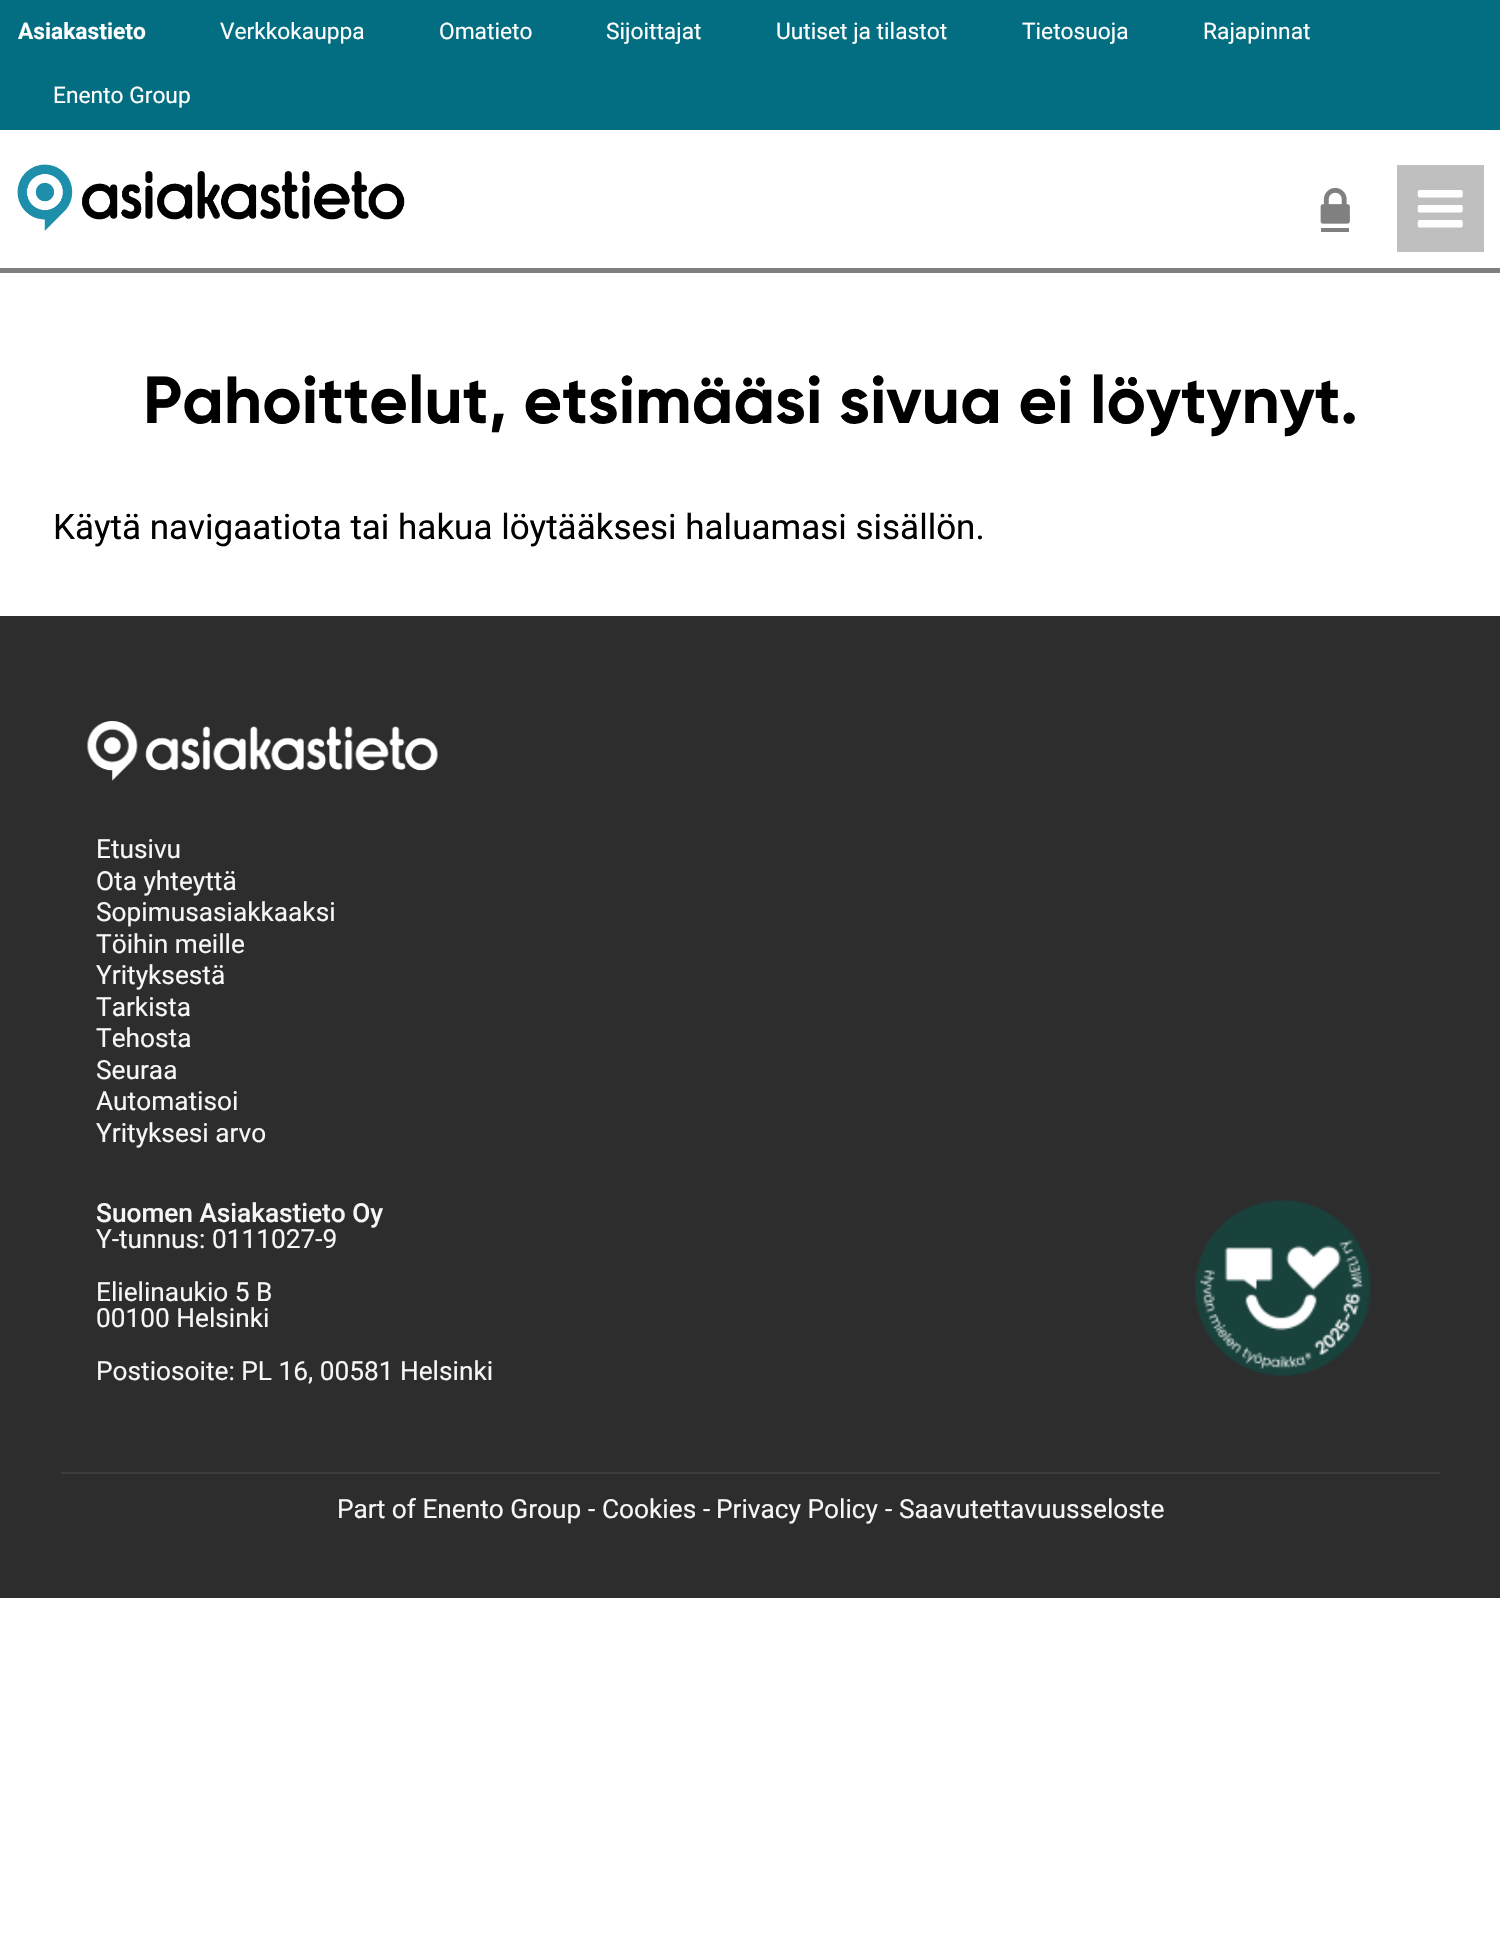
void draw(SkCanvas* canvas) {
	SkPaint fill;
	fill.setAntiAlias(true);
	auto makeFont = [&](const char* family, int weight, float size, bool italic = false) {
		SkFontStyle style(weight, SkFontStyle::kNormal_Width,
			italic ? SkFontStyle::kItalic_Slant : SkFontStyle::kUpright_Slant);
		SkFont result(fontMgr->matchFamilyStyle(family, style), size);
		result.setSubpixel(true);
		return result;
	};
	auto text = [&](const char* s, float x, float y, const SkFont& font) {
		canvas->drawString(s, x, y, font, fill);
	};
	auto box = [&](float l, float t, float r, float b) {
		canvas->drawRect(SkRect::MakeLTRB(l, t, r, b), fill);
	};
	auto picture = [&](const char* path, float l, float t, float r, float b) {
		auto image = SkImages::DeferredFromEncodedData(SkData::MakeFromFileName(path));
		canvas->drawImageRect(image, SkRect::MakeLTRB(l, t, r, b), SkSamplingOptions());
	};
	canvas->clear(0xFFFFFFFF);
	fill.setColor(0xFF036D82);
	box(0, 0, 1500, 130);
	fill.setColor(0xFF808080);
	box(0, 268, 1500, 273);
	picture("image0.png", 17, 164, 405, 231);
	box(1321, 228, 1349, 232);
	picture("image1.png", 1320, 187, 1350, 224);
	fill.setColor(0xFFBFBFBF);
	box(1397, 165, 1484, 252);
	picture("image2.png", 1417, 190, 1463, 228);
	fill.setColor(0xFF2D2D2D);
	box(0, 616, 1500, 1598);
	picture("image3.png", 87, 721, 438, 781);
	picture("image4.png", 1195, 1200, 1371, 1376);
	fill.setColor(0xFF3A3C3E);
	box(61, 1472, 1440, 1474);
	auto font1 = makeFont("Roboto", 700, 22.75f);
	fill.setColor(0xFFFFFFFF);
	text("Asiakastieto", 18, 39, font1);
	auto font2 = makeFont("Roboto", 400, 22.75f);
	text("Verkkokauppa", 220, 39, font2);
	text("Omatieto", 439, 39, font2);
	text("Sijoittajat", 606, 39, font2);
	text("Uutiset ja tilastot", 776, 39, font2);
	text("Tietosuoja", 1022, 39, font2);
	text("Rajapinnat", 1203, 39, font2);
	text("Enento Group", 53, 103, font2);
	auto font3 = makeFont("Gilroy", 400, 66.5f);
	fill.setColor(0xFF000000);
	text("Pahoittelut, etsimääsi sivua ei löytynyt.", 143, 423, font3);
	auto font4 = makeFont("Roboto", 400, 35);
	text("Käytä navigaatiota tai hakua löytääksesi haluamasi sisällön.", 53, 539, font4);
	auto font5 = makeFont("Roboto", 400, 26.25f);
	fill.setColor(0xFFF7F7F7);
	text("Etusivu", 96, 858, font5);
	text("Ota yhteyttä", 96, 890, font5);
	text("Sopimusasiakkaaksi", 96, 921, font5);
	text("Töihin meille", 96, 953, font5);
	text("Yrityksestä", 96, 984, font5);
	text("Tarkista", 96, 1016, font5);
	text("Tehosta", 96, 1047, font5);
	text("Seuraa", 96, 1079, font5);
	text("Automatisoi", 96, 1110, font5);
	text("Yrityksesi arvo", 96, 1142, font5);
	auto font6 = makeFont("Roboto", 500, 26.25f);
	text("Suomen Asiakastieto Oy", 96, 1222, font6);
	text("Y-tunnus: 0111027-9", 96, 1248, font5);
	text("Elielinaukio 5 B", 96, 1301, font5);
	text("00100 Helsinki", 96, 1327, font5);
	text("Postiosoite: PL 16, 00581 Helsinki", 96, 1380, font5);
	text("Part of Enento Group", 337, 1518, font5);
	fill.setColor(0xFFFFFFFF);
	text("-", 588, 1518, font5);
	fill.setColor(0xFFF7F7F7);
	text("Cookies", 602, 1518, font5);
	fill.setColor(0xFFFFFFFF);
	text("-", 703, 1518, font5);
	fill.setColor(0xFFF7F7F7);
	text("Privacy Policy", 716, 1518, font5);
	fill.setColor(0xFFFFFFFF);
	text("-", 885, 1518, font5);
	fill.setColor(0xFFF7F7F7);
	text("Saavutettavuusseloste", 899, 1518, font5);
}
